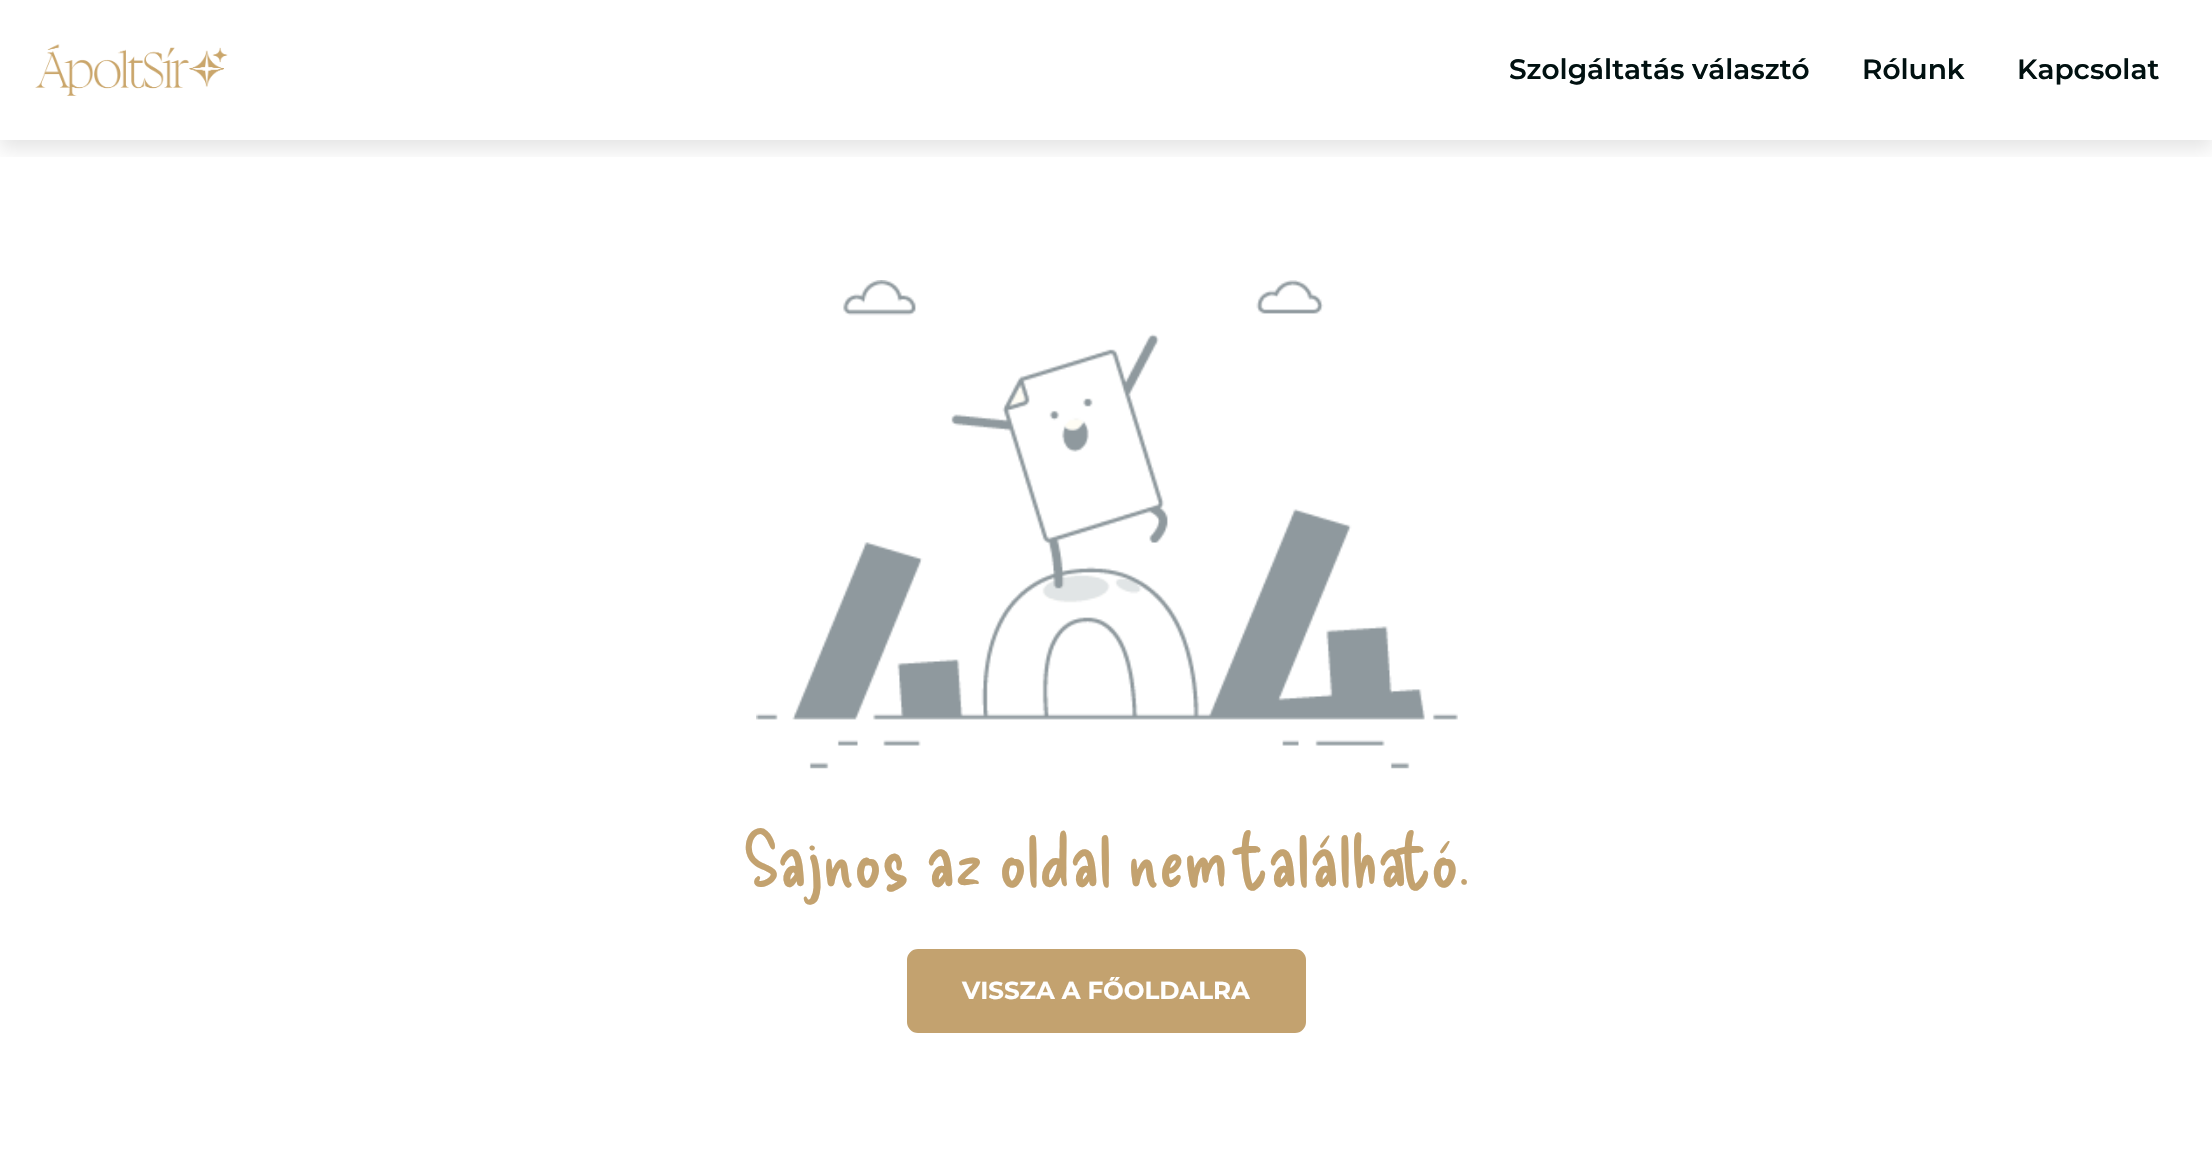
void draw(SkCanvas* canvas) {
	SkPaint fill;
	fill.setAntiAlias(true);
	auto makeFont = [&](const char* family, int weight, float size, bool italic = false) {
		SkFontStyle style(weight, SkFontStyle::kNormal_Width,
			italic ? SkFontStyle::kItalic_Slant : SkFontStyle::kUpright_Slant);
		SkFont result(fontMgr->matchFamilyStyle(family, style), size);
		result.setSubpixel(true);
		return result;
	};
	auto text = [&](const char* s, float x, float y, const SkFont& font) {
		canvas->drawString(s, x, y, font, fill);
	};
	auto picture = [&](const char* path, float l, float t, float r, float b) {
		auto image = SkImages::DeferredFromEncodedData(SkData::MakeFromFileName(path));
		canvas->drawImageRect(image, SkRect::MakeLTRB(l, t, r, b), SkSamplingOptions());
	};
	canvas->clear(0xFFFFFFFF);
	canvas->save();
	canvas->clipRect(SkRect::MakeLTRB(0, 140, 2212, 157));
	fill.setColor(0x1A000000);
	fill.setMaskFilter(SkMaskFilter::MakeBlur(kNormal_SkBlurStyle, 9));
	canvas->drawRect(SkRect::MakeLTRB(0, 9, 2212, 149), fill);
	fill.setMaskFilter(nullptr);
	canvas->restore();
	picture("image0.png", 35, 44, 228, 96);
	picture("image1.png", 756, 280, 1458, 769);
	fill.setColor(0xFFC3A26F);
	canvas->drawRoundRect(SkRect::MakeLTRB(909, 951, 1304, 1031), 9, 9, fill);
	fill.setStyle(SkPaint::kStroke_Style);
	fill.setStrokeWidth(4);
	canvas->drawRoundRect(SkRect::MakeLTRB(909, 951, 1304, 1031), 9, 9, fill);
	auto font1 = makeFont("Montserrat", 600, 28);
	fill.setStyle(SkPaint::kFill_Style);
	fill.setColor(0xFF011111);
	text("Szolgáltatás választó", 1509, 79, font1);
	text("Rólunk", 1862, 79, font1);
	text("Kapcsolat", 2017, 79, font1);
	auto font2 = makeFont("Delicious Handrawn", 400, 73.5f);
	fill.setColor(0xFFC3A26F);
	text("Sajnos az oldal nem található.", 743, 887, font2);
	auto font3 = makeFont("Montserrat", 700, 24.5f);
	fill.setColor(0xFFFFFFFF);
	text("VISSZA A FŐOLDALRA", 962, 999, font3);
}
